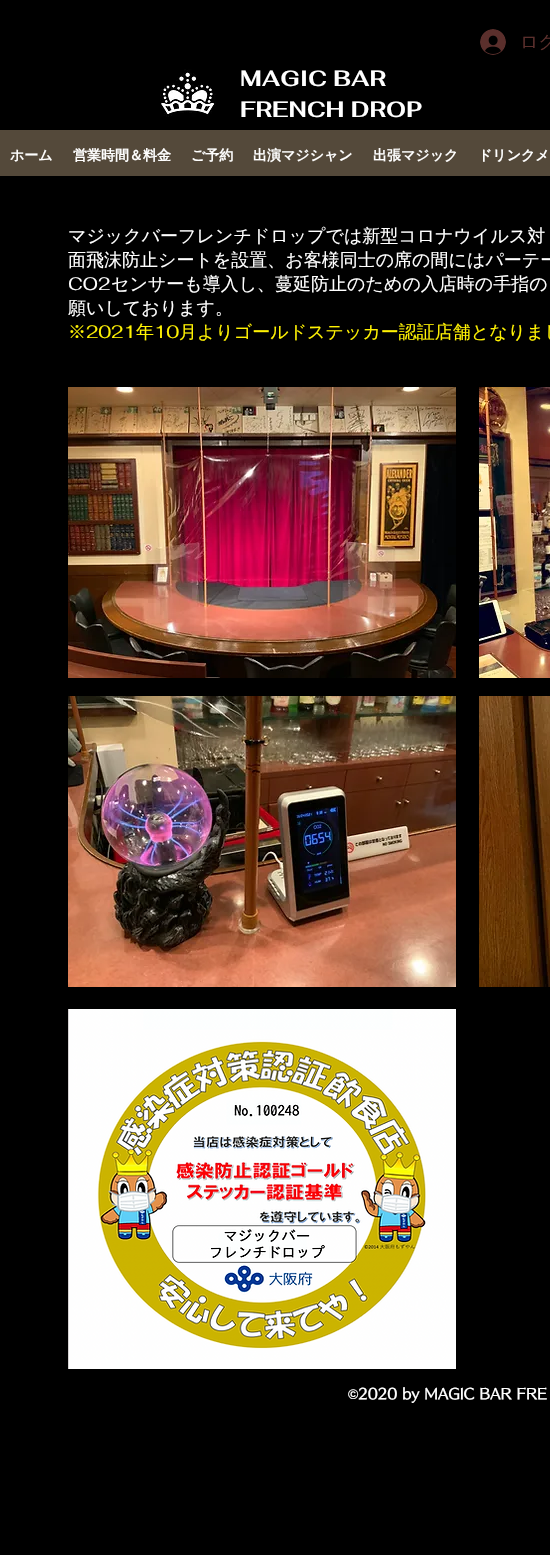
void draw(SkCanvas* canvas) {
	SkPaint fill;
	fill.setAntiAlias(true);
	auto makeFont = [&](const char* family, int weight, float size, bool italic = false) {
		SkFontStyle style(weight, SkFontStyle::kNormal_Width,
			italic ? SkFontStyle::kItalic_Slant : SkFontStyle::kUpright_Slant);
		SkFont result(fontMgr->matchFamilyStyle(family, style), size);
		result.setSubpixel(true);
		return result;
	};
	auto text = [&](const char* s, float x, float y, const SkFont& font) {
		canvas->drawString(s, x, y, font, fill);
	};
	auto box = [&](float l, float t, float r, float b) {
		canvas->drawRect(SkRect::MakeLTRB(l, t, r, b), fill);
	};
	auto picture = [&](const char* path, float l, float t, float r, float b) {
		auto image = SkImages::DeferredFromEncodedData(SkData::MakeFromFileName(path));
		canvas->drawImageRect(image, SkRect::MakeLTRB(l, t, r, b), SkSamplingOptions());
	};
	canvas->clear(0xFF000000);
	picture("image0.png", 480, 29, 506, 55);
	picture("image1.png", 160, 69, 216, 117);
	fill.setColor(0xFF54493A);
	box(0, 130, 550, 176);
	picture("image2.png", 68, 387, 456, 678);
	picture("image3.png", 479, 387, 550, 678);
	picture("image4.png", 68, 696, 456, 987);
	picture("image5.png", 479, 696, 550, 987);
	picture("image6.png", 68, 1009, 456, 1369);
	auto font1 = makeFont("WenQuanYi Zen Hei", 500, 18);
	fill.setColor(0xFF5B2F2C);
	text("ログ", 520, 48, font1);
	auto font2 = makeFont("Fahkwang", 700, 22);
	fill.setColor(0xFFFFFFFF);
	text("MAGIC BAR", 240, 86, font2);
	text("FRENCH DROP", 240, 117, font2);
	auto font3 = makeFont("WenQuanYi Zen Hei", 700, 14);
	text("ホーム", 10, 160, font3);
	text("営業時間＆料金", 73, 160, font3);
	text("ご予約", 191, 160, font3);
	text("出演マジシャン", 253, 160, font3);
	text("出張マジック", 373, 160, font3);
	text("ドリンクメ", 478, 160, font3);
	text("マジックバーフレンチドロップでは新型コロナウイルス対", 68, 242, font1);
	text("面飛沫防止シートを設置、お客様同士の席の間にはパーテー", 68, 266, font1);
	auto font4 = makeFont("Fahkwang", 400, 18);
	text("CO2", 68, 290, font4);
	text("センサーも導入し、蔓延防止のための入店時の手指の", 111, 290, font1);
	text("願いしております。", 68, 314, font1);
	fill.setColor(0xFFFFF203);
	text("※", 68, 338, font1);
	text("2021", 86, 338, font4);
	text("年", 136, 338, font1);
	text("10", 154, 338, font4);
	text("月よりゴールドステッカー認証店舗となりまし", 179, 338, font1);
	auto font5 = makeFont("Liberation Sans", 700, 14);
	fill.setColor(0xFFFFFFFF);
	text("©", 348, 1399, font5);
	auto font6 = makeFont("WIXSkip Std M", 700, 14);
	text("2020 by MAGIC BAR FRE", 358, 1399, font6);
}
